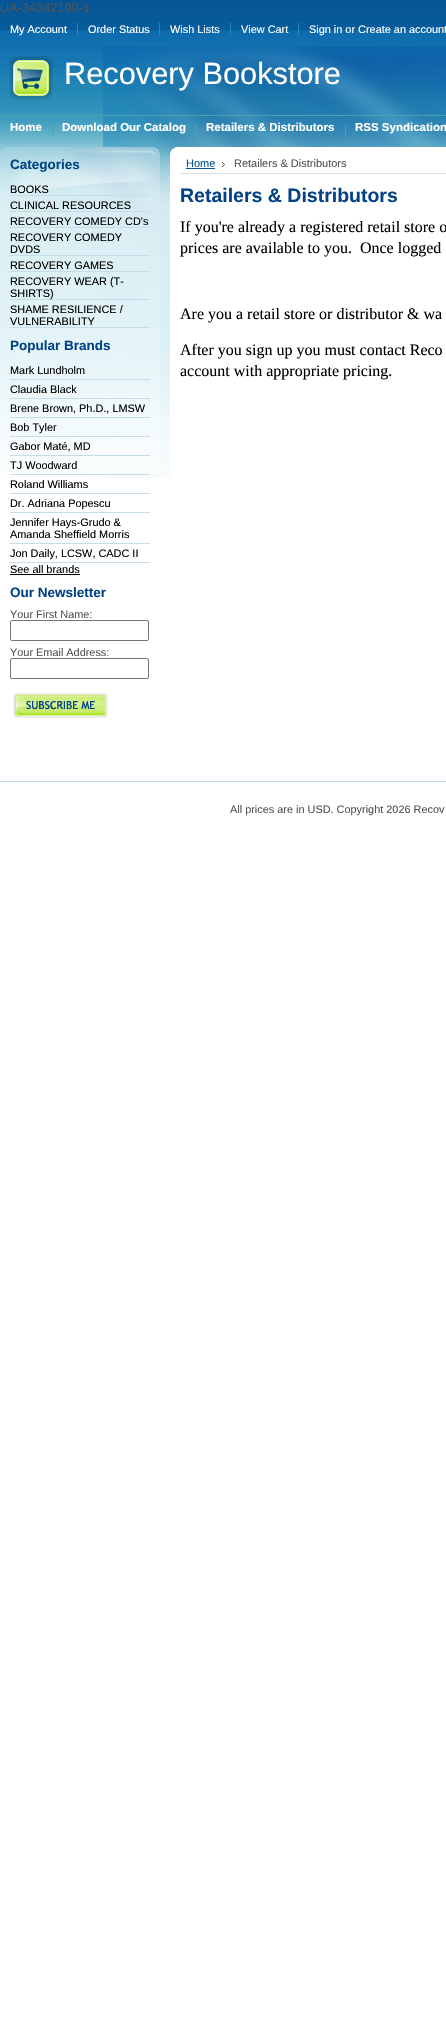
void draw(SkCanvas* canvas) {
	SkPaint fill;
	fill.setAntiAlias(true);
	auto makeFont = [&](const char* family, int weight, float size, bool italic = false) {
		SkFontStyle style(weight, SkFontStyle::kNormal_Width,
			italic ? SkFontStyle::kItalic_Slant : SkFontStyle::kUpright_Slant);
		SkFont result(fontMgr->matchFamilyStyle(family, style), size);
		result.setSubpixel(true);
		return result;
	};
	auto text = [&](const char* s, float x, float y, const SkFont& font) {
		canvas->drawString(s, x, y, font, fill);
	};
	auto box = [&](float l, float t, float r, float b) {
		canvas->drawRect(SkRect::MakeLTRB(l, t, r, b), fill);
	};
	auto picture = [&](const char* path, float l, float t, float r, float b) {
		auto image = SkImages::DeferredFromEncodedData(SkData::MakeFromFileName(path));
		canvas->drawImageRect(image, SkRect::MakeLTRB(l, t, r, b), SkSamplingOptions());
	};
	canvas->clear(0xFFFFFFFF);
	picture("image0.png", 0, 0, 446, 152);
	fill.setColor(0xFF208DB5);
	box(77, 23, 78, 35);
	box(159, 23, 160, 35);
	box(230, 23, 231, 35);
	box(298, 23, 299, 35);
	picture("image1.png", 103, 46, 446, 478);
	fill.setColor(0xFF4AA1B2);
	box(0, 115, 446, 116);
	picture("image2.png", 9, 56, 53, 100);
	box(52, 125, 53, 135);
	box(196, 125, 197, 135);
	box(345, 125, 346, 135);
	picture("image3.png", 0, 147, 160, 473);
	fill.setColor(0xFFC5DDE9);
	box(10, 195, 150, 196);
	box(10, 211, 150, 212);
	box(10, 227, 150, 228);
	box(10, 255, 150, 256);
	box(10, 271, 150, 272);
	box(10, 299, 150, 300);
	box(10, 327, 150, 328);
	box(10, 379, 150, 380);
	box(10, 398, 150, 399);
	box(10, 417, 150, 418);
	box(10, 436, 150, 437);
	box(10, 455, 150, 456);
	box(10, 474, 150, 475);
	box(10, 493, 150, 494);
	box(10, 512, 150, 513);
	box(10, 543, 150, 544);
	box(10, 562, 150, 563);
	fill.setColor(0xFF000000);
	box(10, 574, 80, 575);
	fill.setStyle(SkPaint::kStroke_Style);
	fill.setStrokeWidth(1);
	fill.setColor(0xFF767676);
	canvas->drawRoundRect(SkRect::MakeLTRB(10.5f, 620.5f, 148.5f, 640.5f), 1.5f, 1.5f, fill);
	canvas->drawRoundRect(SkRect::MakeLTRB(10.5f, 658.5f, 148.5f, 678.5f), 1.5f, 1.5f, fill);
	picture("image4.png", 13, 693, 108, 718);
	picture("image5.png", 170, 147, 446, 478);
	fill.setStyle(SkPaint::kFill_Style);
	fill.setColor(0xFFDCDFE2);
	box(180, 173, 446, 174);
	fill.setColor(0xFF075899);
	box(186, 168, 215, 169);
	picture("image6.png", 222, 162, 225, 167);
	fill.setColor(0xFFC0DAE7);
	box(0, 781, 446, 782);
	auto font1 = makeFont("Liberation Sans", 400, 12.75f);
	fill.setColor(0xFF535353);
	text("UA-34342190-1", 0, 12, font1);
	auto font2 = makeFont("Liberation Sans", 400, 10.9f);
	fill.setColor(0xFFFFFFFF);
	text("My Account", 10, 33, font2);
	text("Order Status", 88, 33, font2);
	text("Wish Lists", 170, 33, font2);
	text("View Cart", 241, 33, font2);
	text("Sign in or Create an account", 309, 33, font2);
	auto font3 = makeFont("Liberation Sans", 400, 30.75f);
	text("Recovery Bookstore", 64, 84, font3);
	auto font4 = makeFont("Liberation Sans", 700, 11.5f);
	text("Home", 10, 131, font4);
	text("Download Our Catalog", 62, 131, font4);
	text("Retailers & Distributors", 206, 131, font4);
	text("RSS Syndication", 355, 131, font4);
	auto font5 = makeFont("Liberation Sans", 700, 13.5f);
	fill.setColor(0xFF034285);
	text("Categories", 10, 169, font5);
	fill.setColor(0xFF000000);
	text("BOOKS", 10, 193, font2);
	text("CLINICAL RESOURCES", 10, 209, font2);
	text("RECOVERY COMEDY CD's", 10, 225, font2);
	text("RECOVERY COMEDY", 10, 241, font2);
	text("DVDS", 10, 253, font2);
	text("RECOVERY GAMES", 10, 269, font2);
	text("RECOVERY WEAR (T-", 10, 285, font2);
	text("SHIRTS)", 10, 297, font2);
	text("SHAME RESILIENCE /", 10, 313, font2);
	text("VULNERABILITY", 10, 325, font2);
	fill.setColor(0xFF034285);
	text("Popular Brands", 10, 350, font5);
	fill.setColor(0xFF000000);
	text("Mark Lundholm", 10, 374, font2);
	text("Claudia Black", 10, 393, font2);
	text("Brene Brown, Ph.D., LMSW", 10, 412, font2);
	text("Bob Tyler", 10, 431, font2);
	text("Gabor Maté, MD", 10, 450, font2);
	text("TJ Woodward", 10, 469, font2);
	text("Roland Williams", 10, 488, font2);
	text("Dr. Adriana Popescu", 10, 507, font2);
	text("Jennifer Hays-Grudo &", 10, 526, font2);
	text("Amanda Sheffield Morris", 10, 538, font2);
	text("Jon Daily, LCSW, CADC II", 10, 557, font2);
	text("See all brands", 10, 573, font2);
	fill.setColor(0xFF034285);
	text("Our Newsletter", 10, 597, font5);
	fill.setColor(0xFF535353);
	text("Your First Name:", 10, 618, font2);
	text("Your Email Address:", 10, 656, font2);
	auto font6 = makeFont("Liberation Sans", 400, 11);
	fill.setColor(0xFF075899);
	text("Home", 186, 167, font6);
	fill.setColor(0xFF535353);
	text("Retailers & Distributors", 234, 167, font6);
	auto font7 = makeFont("Liberation Sans", 700, 19.5f);
	fill.setColor(0xFF034285);
	text("Retailers & Distributors", 180, 202, font7);
	auto font8 = makeFont("Liberation Serif", 400, 16);
	fill.setColor(0xFF000000);
	text("If you're already a registered retail store o", 180, 232, font8);
	text("prices are available to you.  Once logged", 180, 253, font8);
	text("Are you a retail store or distributor & wa", 180, 319, font8);
	text("After you sign up you must contact Reco", 180, 355, font8);
	text("account with appropriate pricing.", 180, 376, font8);
	fill.setColor(0xFF535353);
	text("All prices are in USD. Copyright 2026 Recov", 230, 813, font2);
}
